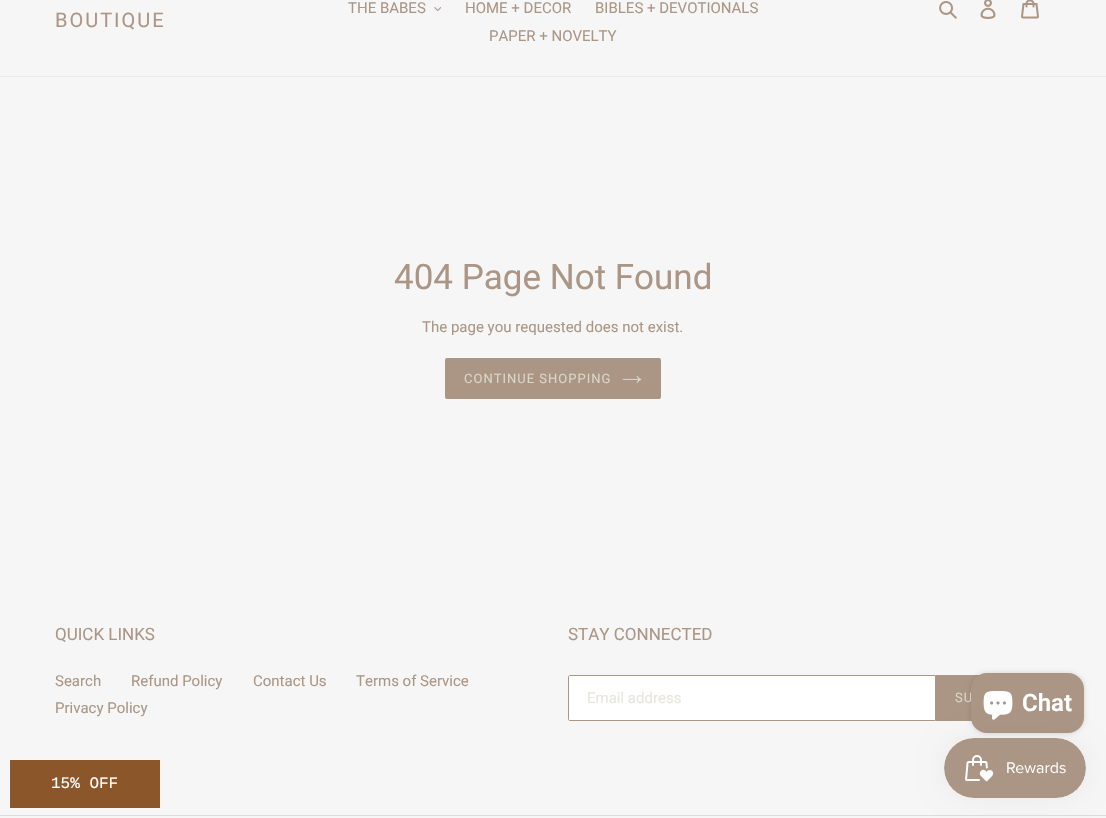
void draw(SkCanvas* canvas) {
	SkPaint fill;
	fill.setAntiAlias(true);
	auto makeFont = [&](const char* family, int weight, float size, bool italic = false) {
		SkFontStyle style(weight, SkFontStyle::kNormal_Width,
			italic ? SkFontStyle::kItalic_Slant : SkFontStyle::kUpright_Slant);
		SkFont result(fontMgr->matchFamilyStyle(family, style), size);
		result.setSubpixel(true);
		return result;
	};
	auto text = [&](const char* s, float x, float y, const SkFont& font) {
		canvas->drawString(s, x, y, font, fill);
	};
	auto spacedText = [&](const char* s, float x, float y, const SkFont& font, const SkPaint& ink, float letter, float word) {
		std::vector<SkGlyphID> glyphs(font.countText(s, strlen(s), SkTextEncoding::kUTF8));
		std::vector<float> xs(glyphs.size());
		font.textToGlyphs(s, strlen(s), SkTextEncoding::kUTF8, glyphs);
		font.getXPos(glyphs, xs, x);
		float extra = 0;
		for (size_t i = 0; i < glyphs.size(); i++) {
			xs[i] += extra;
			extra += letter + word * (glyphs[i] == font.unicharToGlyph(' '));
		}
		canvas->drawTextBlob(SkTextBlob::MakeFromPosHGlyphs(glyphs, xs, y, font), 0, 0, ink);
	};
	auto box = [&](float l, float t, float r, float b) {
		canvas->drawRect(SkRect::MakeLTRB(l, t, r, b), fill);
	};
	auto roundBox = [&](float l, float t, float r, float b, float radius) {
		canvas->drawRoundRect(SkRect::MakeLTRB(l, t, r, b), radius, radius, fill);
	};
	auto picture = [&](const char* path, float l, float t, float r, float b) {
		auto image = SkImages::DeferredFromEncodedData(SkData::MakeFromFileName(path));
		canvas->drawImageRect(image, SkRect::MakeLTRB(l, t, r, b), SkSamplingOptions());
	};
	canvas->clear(0xFFF6F6F6);
	fill.setColor(0xFFEBEBEB);
	box(0, 76, 1106, 77);
	picture("image0.png", 434, 7, 441, 11);
	picture("image1.png", 939, 1, 957, 19);
	picture("image2.png", 980, 0, 996, 19);
	picture("image3.png", 1021, 0, 1039, 19);
	fill.setColor(0xFFAB9685);
	roundBox(445, 358, 661, 399, 2);
	picture("image4.png", 622, 376, 642, 383);
	fill.setColor(0xFFFFFFFF);
	canvas->drawPath(SkPathBuilder().moveTo(570, 675.5f).lineTo(935.5f, 675.5f).lineTo(935.5f, 720.5f).lineTo(570, 720.5f).cubicTo(569, 720.5f, 568.5f, 720, 568.5f, 719).lineTo(568.5f, 677).cubicTo(568.5f, 676, 569, 675.5f, 570, 675.5f).close().detach(), fill);
	fill.setStyle(SkPaint::kStroke_Style);
	fill.setStrokeWidth(1);
	fill.setColor(0xFFAB9685);
	canvas->drawPath(SkPathBuilder().moveTo(570, 675.5f).lineTo(935.5f, 675.5f).lineTo(935.5f, 720.5f).lineTo(570, 720.5f).cubicTo(569, 720.5f, 568.5f, 720, 568.5f, 719).lineTo(568.5f, 677).cubicTo(568.5f, 676, 569, 675.5f, 570, 675.5f).close().detach(), fill);
	fill.setStyle(SkPaint::kFill_Style);
	box(936, 675, 980, 721);
	fill.setColor(0xFFDDDDDD);
	box(0, 815, 1106, 816);
	fill.setColor(0x26000000);
	fill.setMaskFilter(SkMaskFilter::MakeBlur(kNormal_SkBlurStyle, 2.5f));
	canvas->drawRoundRect(SkRect::MakeLTRB(971, 673, 1084, 733), 16, 16, fill);
	fill.setMaskFilter(nullptr);
	fill.setColor(0xFF8B572A);
	box(10, 760, 160, 808);
	auto font1 = makeFont("Roboto", 400, 20);
	fill.setColor(0xFFAB9685);
	spacedText("BOUTIQUE", 55, 27, font1, fill, 2, 0);
	auto font2 = makeFont("Roboto", 400, 15);
	text("THE BABES", 348, 13, font2);
	text("HOME + DECOR", 465, 13, font2);
	text("BIBLES + DEVOTIONALS", 595, 13, font2);
	text("PAPER + NOVELTY", 489, 41, font2);
	auto font3 = makeFont("Roboto", 400, 35);
	text("404 Page Not Found", 394, 289, font3);
	text("The page you requested does not exist.", 422, 332, font2);
	auto font4 = makeFont("Roboto", 400, 13);
	fill.setColor(0xFFD9D7C7);
	spacedText("CONTINUE SHOPPING", 464, 383, font4, fill, 1, 0);
	auto font5 = makeFont("Roboto", 400, 17);
	fill.setColor(0xFFAB9685);
	text("QUICK LINKS", 55, 640, font5);
	text("Search", 55, 686, font2);
	text("Refund Policy", 131, 686, font2);
	text("Contact Us", 253, 686, font2);
	text("Terms of Service", 356, 686, font2);
	text("Privacy Policy", 55, 713, font2);
	text("STAY CONNECTED", 568, 640, font5);
	fill.setColor(0xFFE8E7DD);
	text("Email address", 587, 703, font2);
	fill.setColor(0xFFD9D7C7);
	spacedText("SU", 955, 702, font4, fill, 1, 0);
	fill.setColor(0xFFAB9685);
	roundBox(971, 673, 1084, 733, 16);
	picture("image5.png", 983, 691, 1013, 720);
	auto font6 = makeFont("Roboto", 600, 24);
	fill.setColor(0xFFFFFFFF);
	text("Chat", 1022, 711, font6);
	auto font7 = makeFont("Liberation Mono", 400, 16);
	text("15% OFF", 51, 788, font7);
	fill.setColor(0x0D000000);
	fill.setMaskFilter(SkMaskFilter::MakeBlur(kNormal_SkBlurStyle, 12.5f));
	canvas->drawRoundRect(SkRect::MakeLTRB(944, 738, 1086, 798), 30, 30, fill);
	fill.setMaskFilter(nullptr);
	picture("image6.png", 944, 738, 1086, 798);
}
